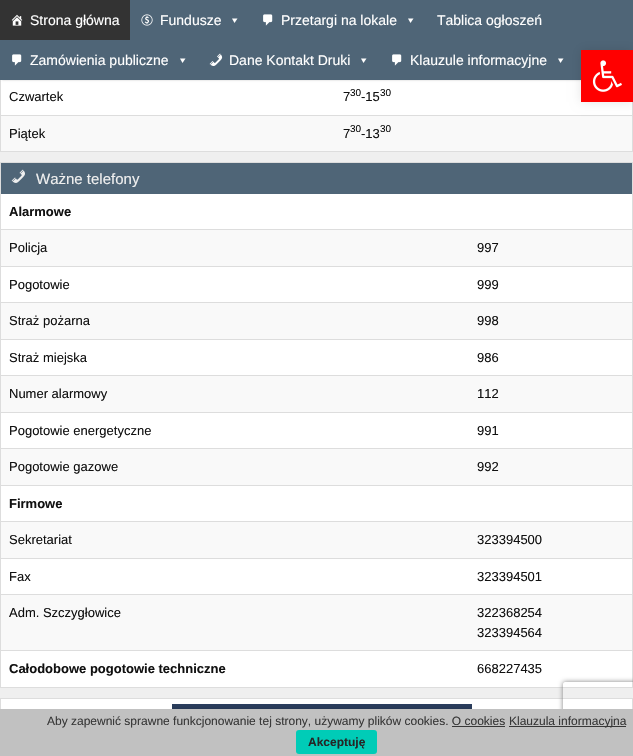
void draw(SkCanvas* canvas) {
	SkPaint fill;
	fill.setAntiAlias(true);
	auto makeFont = [&](const char* family, int weight, float size, bool italic = false) {
		SkFontStyle style(weight, SkFontStyle::kNormal_Width,
			italic ? SkFontStyle::kItalic_Slant : SkFontStyle::kUpright_Slant);
		SkFont result(fontMgr->matchFamilyStyle(family, style), size);
		result.setSubpixel(true);
		return result;
	};
	auto text = [&](const char* s, float x, float y, const SkFont& font) {
		canvas->drawString(s, x, y, font, fill);
	};
	auto box = [&](float l, float t, float r, float b) {
		canvas->drawRect(SkRect::MakeLTRB(l, t, r, b), fill);
	};
	auto roundBox = [&](float l, float t, float r, float b, float radius) {
		canvas->drawRoundRect(SkRect::MakeLTRB(l, t, r, b), radius, radius, fill);
	};
	auto picture = [&](const char* path, float l, float t, float r, float b) {
		auto image = SkImages::DeferredFromEncodedData(SkData::MakeFromFileName(path));
		canvas->drawImageRect(image, SkRect::MakeLTRB(l, t, r, b), SkSamplingOptions());
	};
	canvas->clear(0xFFEFEFEF);
	fill.setColor(0xFFFFFFFF);
	box(1, 80, 632, 115);
	fill.setStyle(SkPaint::kStroke_Style);
	fill.setStrokeWidth(1);
	fill.setColor(0xFFDDDDDD);
	canvas->drawRect(SkRect::MakeLTRB(0.5f, -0.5f, 632.5f, 151.5f), fill);
	fill.setStyle(SkPaint::kFill_Style);
	fill.setColor(0x33000000);
	fill.setMaskFilter(SkMaskFilter::MakeBlur(kNormal_SkBlurStyle, 1));
	canvas->drawRect(SkRect::MakeLTRB(2, 4, 631, 80), fill);
	fill.setMaskFilter(nullptr);
	fill.setColor(0xFF4F6577);
	box(0, 0, 633, 80);
	fill.setColor(0xFF333333);
	box(0, 0, 130, 40);
	picture("image0.png", 11, 14, 23, 26);
	picture("image1.png", 141, 14, 153, 26);
	fill.setColor(0xFFFFFFFF);
	canvas->drawPath(SkPathBuilder().moveTo(237.5f, 18.5f).lineTo(234.5f, 23).lineTo(232, 18.5f).close().detach(), fill);
	picture("image2.png", 263, 14, 273, 26);
	canvas->drawPath(SkPathBuilder().moveTo(413.5f, 18.5f).lineTo(410.5f, 23).lineTo(408, 18.5f).close().detach(), fill);
	picture("image2.png", 12, 54, 22, 66);
	canvas->drawPath(SkPathBuilder().moveTo(185.5f, 58.5f).lineTo(182.5f, 63).lineTo(180, 58.5f).close().detach(), fill);
	picture("image3.png", 209, 53, 223, 66);
	canvas->drawPath(SkPathBuilder().moveTo(366.5f, 58.5f).lineTo(363.5f, 63).lineTo(361, 58.5f).close().detach(), fill);
	picture("image2.png", 392, 54, 402, 66);
	canvas->drawPath(SkPathBuilder().moveTo(563.5f, 58.5f).lineTo(560.5f, 63).lineTo(558, 58.5f).close().detach(), fill);
	fill.setColor(0xFFDDDDDD);
	box(1, 115, 633, 116);
	fill.setColor(0xFFF9F9F9);
	box(1, 116, 632, 151);
	fill.setColor(0x1A000000);
	fill.setMaskFilter(SkMaskFilter::MakeBlur(kNormal_SkBlurStyle, 5));
	canvas->drawRect(SkRect::MakeLTRB(581, 50, 633, 102), fill);
	fill.setMaskFilter(nullptr);
	fill.setColor(0xFFFF0000);
	box(581, 50, 633, 102);
	picture("image4.png", 592, 60, 622, 92);
	fill.setColor(0xFFFFFFFF);
	box(1, 194, 632, 687);
	fill.setStyle(SkPaint::kStroke_Style);
	fill.setColor(0xFFDDDDDD);
	canvas->drawRect(SkRect::MakeLTRB(0.5f, 162.5f, 632.5f, 687.5f), fill);
	fill.setStyle(SkPaint::kFill_Style);
	fill.setColor(0xFF4F6577);
	box(1, 163, 632, 194);
	picture("image5.png", 11, 169, 25, 183);
	fill.setColor(0xFFF9F9F9);
	box(1, 230, 632, 266);
	fill.setColor(0xFFDDDDDD);
	box(1, 229, 633, 230);
	box(1, 266, 633, 267);
	fill.setColor(0xFFF9F9F9);
	box(1, 303, 632, 339);
	fill.setColor(0xFFDDDDDD);
	box(1, 302, 633, 303);
	box(1, 339, 633, 340);
	fill.setColor(0xFFF9F9F9);
	box(1, 376, 632, 412);
	fill.setColor(0xFFDDDDDD);
	box(1, 375, 633, 376);
	box(1, 412, 633, 413);
	fill.setColor(0xFFF9F9F9);
	box(1, 449, 632, 485);
	fill.setColor(0xFFDDDDDD);
	box(1, 448, 633, 449);
	box(1, 485, 633, 486);
	fill.setColor(0xFFF9F9F9);
	box(1, 522, 632, 558);
	fill.setColor(0xFFDDDDDD);
	box(1, 521, 633, 522);
	box(1, 558, 633, 559);
	fill.setColor(0xFFF9F9F9);
	box(1, 595, 632, 650);
	fill.setColor(0xFFDDDDDD);
	box(1, 594, 633, 595);
	box(1, 650, 633, 651);
	fill.setColor(0xFFFFFFFF);
	box(1, 699, 632, 709);
	fill.setStyle(SkPaint::kStroke_Style);
	fill.setColor(0xFFDDDDDD);
	canvas->drawRect(SkRect::MakeLTRB(0.5f, 698.5f, 632.5f, 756.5f), fill);
	picture("image6.png", 172, 704, 472, 709);
	canvas->save();
	canvas->clipPath(SkPathBuilder(SkPathFillType::kEvenOdd).moveTo(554, 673).lineTo(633, 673).lineTo(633, 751).lineTo(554, 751).close().moveTo(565, 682).lineTo(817, 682).cubicTo(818, 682, 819, 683, 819, 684).lineTo(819, 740).cubicTo(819, 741, 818, 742, 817, 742).lineTo(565, 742).cubicTo(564, 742, 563, 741, 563, 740).lineTo(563, 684).cubicTo(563, 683, 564, 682, 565, 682).close().detach(), true);
	fill.setStyle(SkPaint::kFill_Style);
	fill.setColor(0xFF808080);
	fill.setMaskFilter(SkMaskFilter::MakeBlur(kNormal_SkBlurStyle, 2.5f));
	canvas->drawRoundRect(SkRect::MakeLTRB(563, 682, 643, 742), 2, 2, fill);
	fill.setMaskFilter(nullptr);
	canvas->restore();
	fill.setColor(0xFFC1C1C1);
	box(0, 709, 633, 756);
	fill.setColor(0xFF383838);
	box(509, 726, 626, 727);
	box(452, 726, 505, 727);
	fill.setColor(0xFF00CCB7);
	roundBox(296, 730, 377, 754, 3);
	auto font1 = makeFont("Liberation Sans", 400, 14);
	fill.setColor(0xFFFFFFFF);
	text("Strona główna", 30, 25, font1);
	text("Fundusze", 160, 25, font1);
	text("Przetargi na lokale", 281, 25, font1);
	text("Tablica ogłoszeń", 437, 25, font1);
	text("Zamówienia publiczne", 30, 65, font1);
	text("Dane Kontakt Druki", 229, 65, font1);
	text("Klauzule informacyjne", 410, 65, font1);
	auto font2 = makeFont("Liberation Sans", 400, 13);
	fill.setColor(0xFF111111);
	text("Czwartek", 9, 101, font2);
	text("7", 343, 101, font2);
	auto font3 = makeFont("Liberation Sans", 400, 10);
	text("30", 350, 96, font3);
	text("-15", 361, 101, font2);
	text("30", 380, 96, font3);
	text("Piątek", 9, 138, font2);
	text("7", 343, 138, font2);
	text("30", 350, 132, font3);
	text("-13", 361, 138, font2);
	text("30", 380, 132, font3);
	auto font4 = makeFont("Liberation Sans", 400, 15);
	fill.setColor(0xFFEFEFEF);
	text("Ważne telefony", 36, 184, font4);
	auto font5 = makeFont("Liberation Sans", 700, 13);
	fill.setColor(0xFF111111);
	text("Alarmowe", 9, 216, font5);
	text("Policja", 9, 252, font2);
	text("997", 477, 252, font2);
	text("Pogotowie", 9, 289, font2);
	text("999", 477, 289, font2);
	text("Straż pożarna", 9, 325, font2);
	text("998", 477, 325, font2);
	text("Straż miejska", 9, 362, font2);
	text("986", 477, 362, font2);
	text("Numer alarmowy", 9, 398, font2);
	text("112", 477, 398, font2);
	text("Pogotowie energetyczne", 9, 435, font2);
	text("991", 477, 435, font2);
	text("Pogotowie gazowe", 9, 471, font2);
	text("992", 477, 471, font2);
	text("Firmowe", 9, 508, font5);
	text("Sekretariat", 9, 544, font2);
	text("323394500", 477, 544, font2);
	text("Fax", 9, 581, font2);
	text("323394501", 477, 581, font2);
	text("Adm. Szczygłowice", 9, 617, font2);
	text("322368254", 477, 617, font2);
	text("323394564", 477, 637, font2);
	text("Całodobowe pogotowie techniczne", 9, 673, font5);
	text("668227435", 477, 673, font2);
	auto font6 = makeFont("Liberation Sans", 400, 12);
	fill.setColor(0xFF383838);
	text("Aby zapewnić sprawne funkcjonowanie tej strony, używamy plików cookies. O cookies", 47, 725, font6);
	text("Klauzula informacyjna", 509, 725, font6);
	auto font7 = makeFont("Liberation Sans", 700, 12);
	fill.setColor(0xFF262626);
	text("Akceptuję", 308, 746, font7);
}
